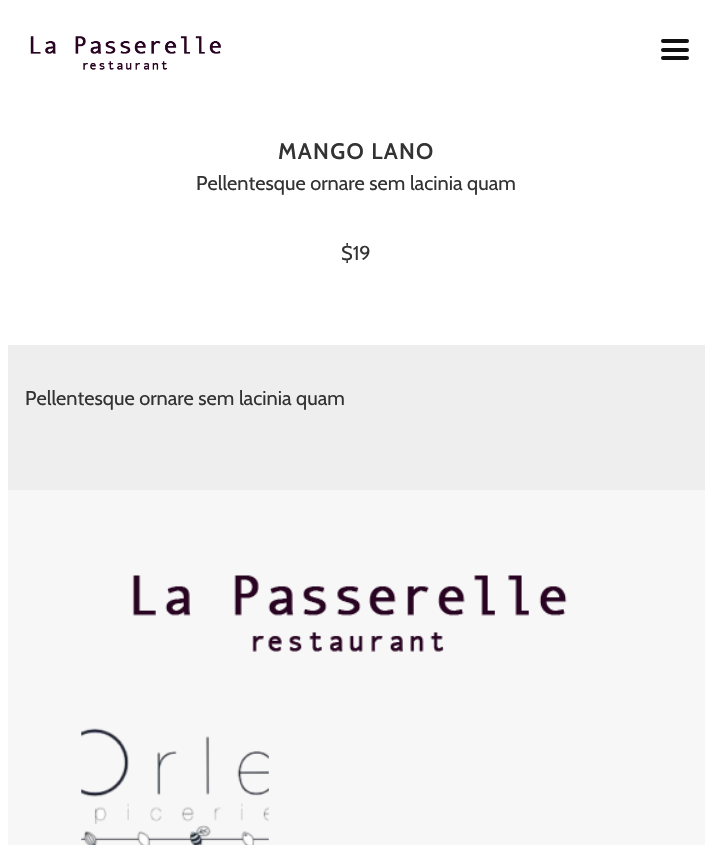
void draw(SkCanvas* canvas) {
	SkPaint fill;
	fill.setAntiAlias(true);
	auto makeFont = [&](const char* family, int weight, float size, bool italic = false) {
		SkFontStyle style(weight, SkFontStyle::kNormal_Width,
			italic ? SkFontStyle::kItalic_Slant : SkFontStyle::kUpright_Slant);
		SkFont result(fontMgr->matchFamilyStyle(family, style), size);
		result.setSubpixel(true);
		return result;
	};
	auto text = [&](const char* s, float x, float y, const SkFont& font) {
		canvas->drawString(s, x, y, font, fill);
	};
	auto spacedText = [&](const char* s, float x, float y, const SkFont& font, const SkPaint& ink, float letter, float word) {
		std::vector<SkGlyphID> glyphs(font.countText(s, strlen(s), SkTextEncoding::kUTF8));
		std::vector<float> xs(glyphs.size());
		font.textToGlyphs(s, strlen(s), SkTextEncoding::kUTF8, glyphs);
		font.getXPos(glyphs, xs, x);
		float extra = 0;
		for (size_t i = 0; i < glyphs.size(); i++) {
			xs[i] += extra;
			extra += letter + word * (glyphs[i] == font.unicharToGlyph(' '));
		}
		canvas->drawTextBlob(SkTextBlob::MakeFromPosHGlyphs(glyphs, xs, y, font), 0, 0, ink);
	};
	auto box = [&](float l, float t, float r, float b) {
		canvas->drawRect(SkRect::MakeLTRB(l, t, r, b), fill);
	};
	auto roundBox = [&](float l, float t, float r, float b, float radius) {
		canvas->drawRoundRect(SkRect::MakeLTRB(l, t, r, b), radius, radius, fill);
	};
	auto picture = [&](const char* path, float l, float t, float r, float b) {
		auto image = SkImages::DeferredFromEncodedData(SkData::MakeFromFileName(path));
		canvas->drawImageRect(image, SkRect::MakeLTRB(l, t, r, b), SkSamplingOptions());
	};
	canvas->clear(0xFFFFFFFF);
	picture("image0.png", 30, 36, 221, 70);
	fill.setColor(0xFF111111);
	roundBox(661, 48, 689, 52, 2);
	roundBox(661, 39, 689, 43, 2);
	roundBox(661, 56, 689, 60, 2);
	fill.setColor(0xFFEEEEEE);
	box(8, 345, 705, 490);
	fill.setColor(0xFFF7F7F7);
	box(8, 490, 705, 845);
	picture("image1.png", 132, 575, 567, 652);
	picture("image2.png", 81, 728, 269, 845);
	auto font1 = makeFont("Cabin", 600, 22.5f);
	fill.setColor(0xFF333333);
	spacedText("MANGO LANO", 278, 159, font1, fill, 1.25f, 0);
	auto font2 = makeFont("Cabin", 400, 20);
	text("Pellentesque ornare sem lacinia quam", 196, 190, font2);
	text("$19", 341, 260, font2);
	text("Pellentesque ornare sem lacinia quam", 25, 405, font2);
}
